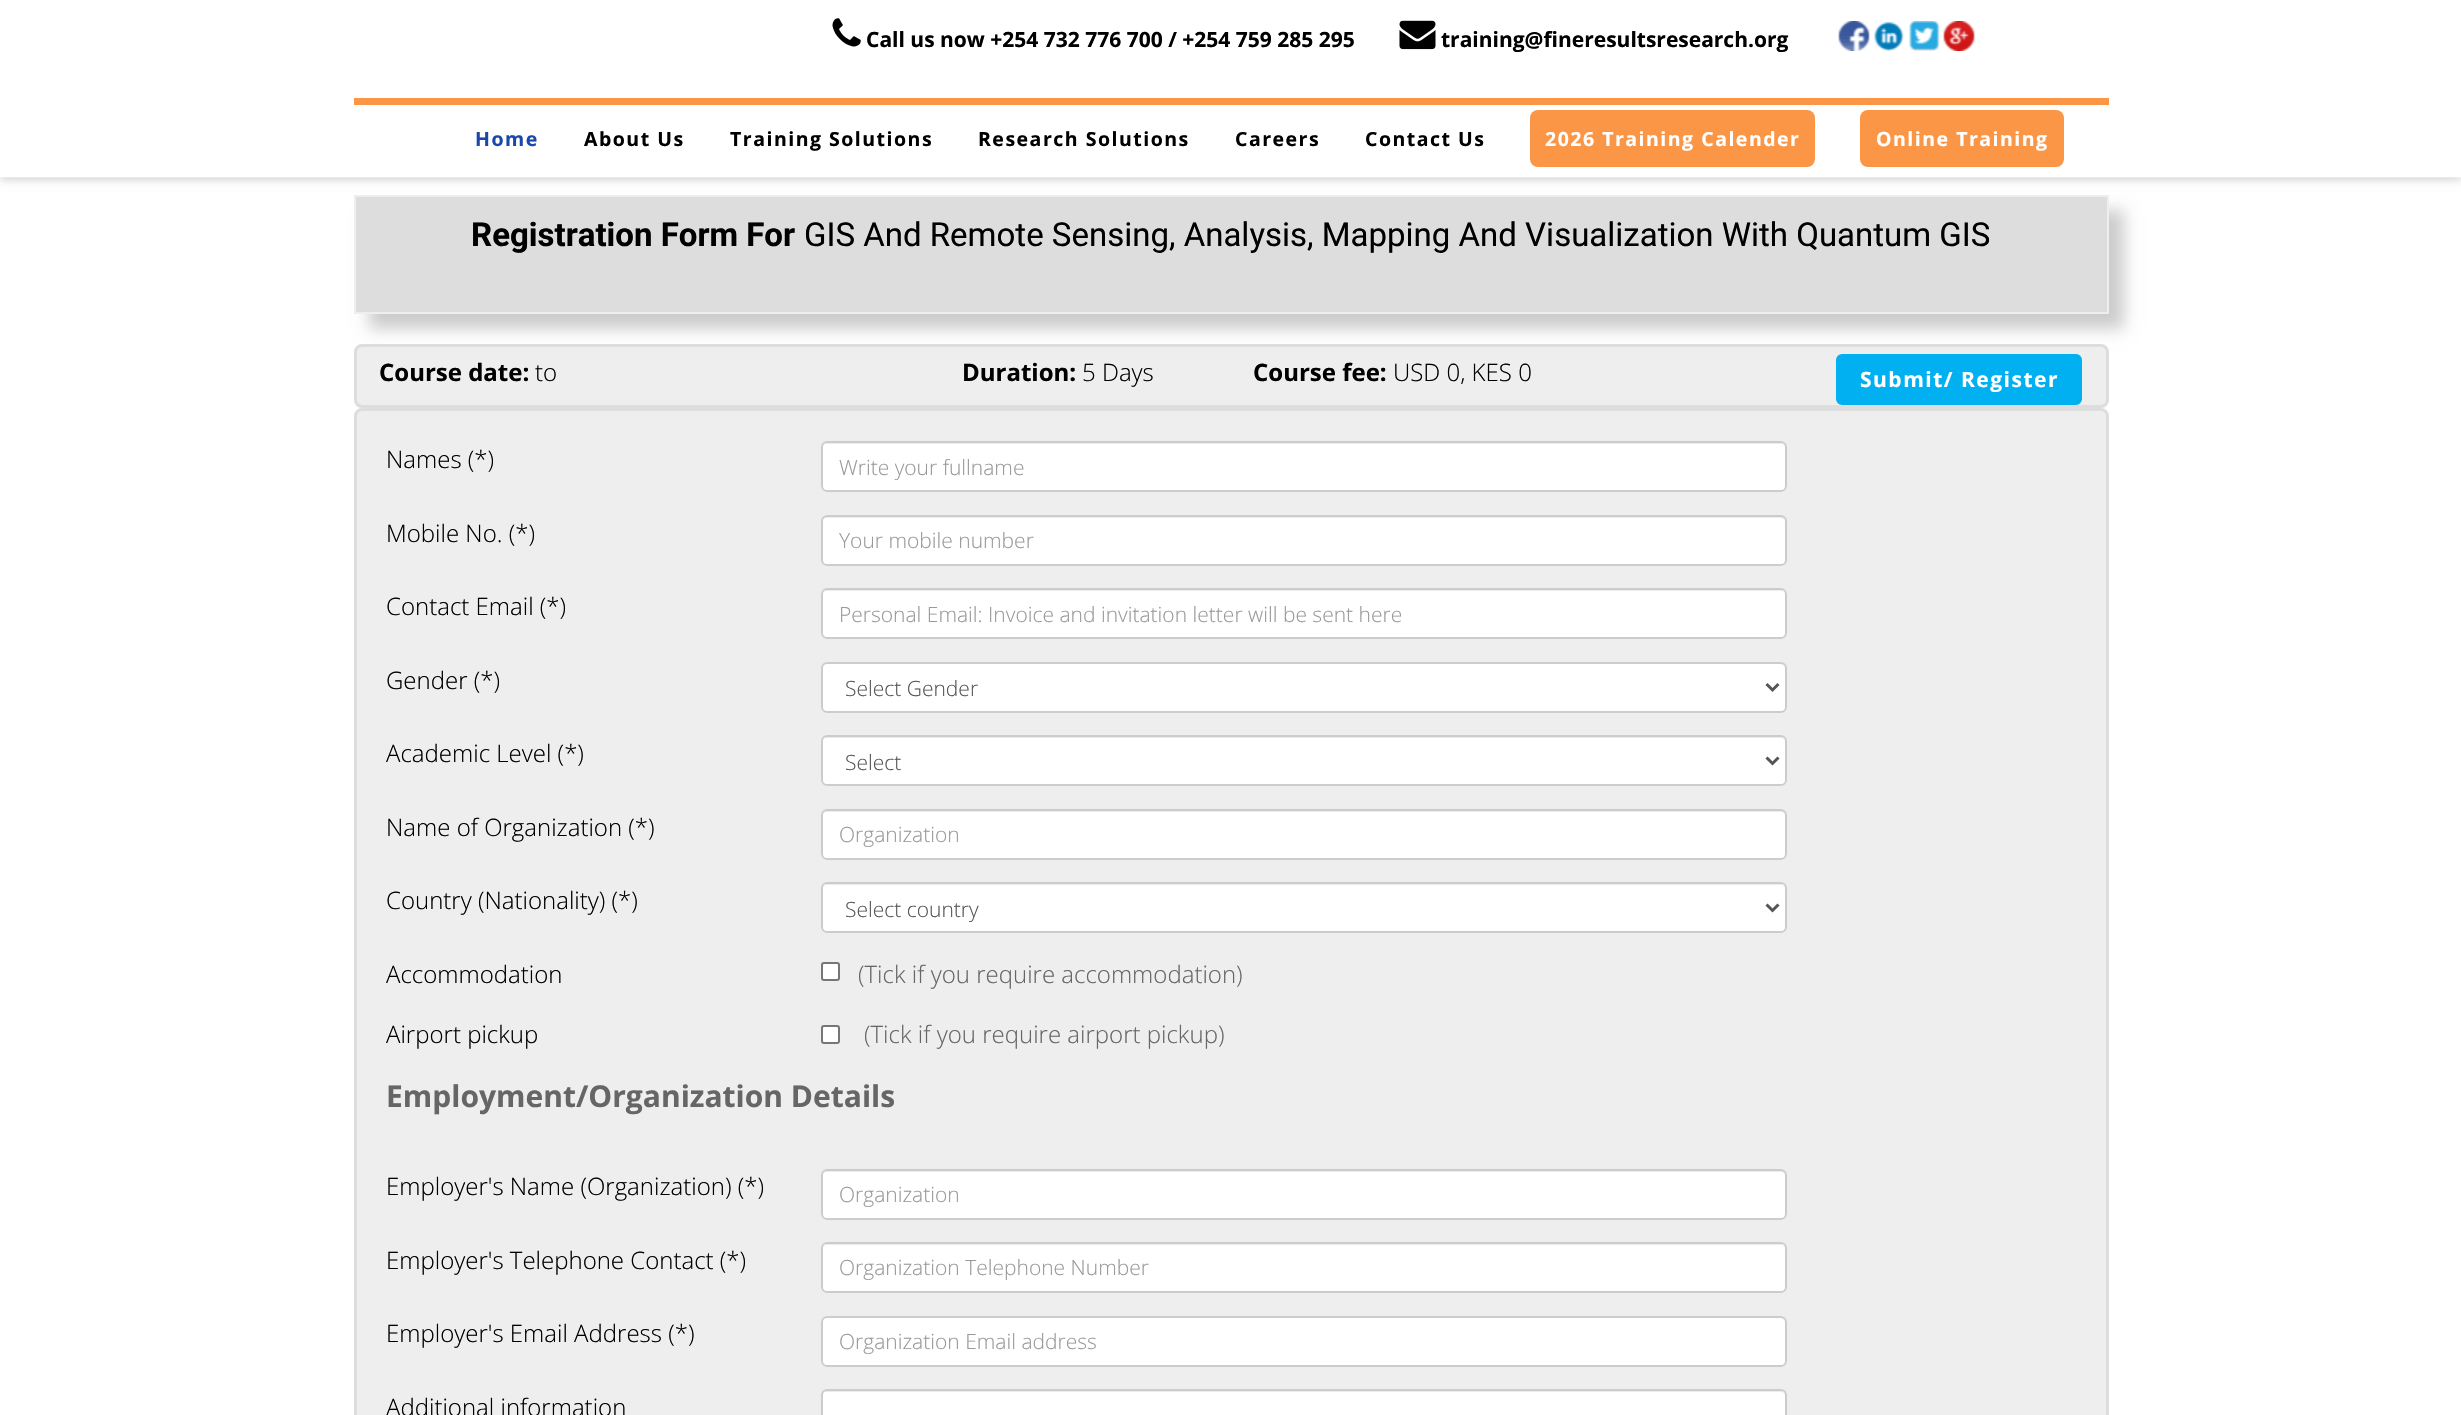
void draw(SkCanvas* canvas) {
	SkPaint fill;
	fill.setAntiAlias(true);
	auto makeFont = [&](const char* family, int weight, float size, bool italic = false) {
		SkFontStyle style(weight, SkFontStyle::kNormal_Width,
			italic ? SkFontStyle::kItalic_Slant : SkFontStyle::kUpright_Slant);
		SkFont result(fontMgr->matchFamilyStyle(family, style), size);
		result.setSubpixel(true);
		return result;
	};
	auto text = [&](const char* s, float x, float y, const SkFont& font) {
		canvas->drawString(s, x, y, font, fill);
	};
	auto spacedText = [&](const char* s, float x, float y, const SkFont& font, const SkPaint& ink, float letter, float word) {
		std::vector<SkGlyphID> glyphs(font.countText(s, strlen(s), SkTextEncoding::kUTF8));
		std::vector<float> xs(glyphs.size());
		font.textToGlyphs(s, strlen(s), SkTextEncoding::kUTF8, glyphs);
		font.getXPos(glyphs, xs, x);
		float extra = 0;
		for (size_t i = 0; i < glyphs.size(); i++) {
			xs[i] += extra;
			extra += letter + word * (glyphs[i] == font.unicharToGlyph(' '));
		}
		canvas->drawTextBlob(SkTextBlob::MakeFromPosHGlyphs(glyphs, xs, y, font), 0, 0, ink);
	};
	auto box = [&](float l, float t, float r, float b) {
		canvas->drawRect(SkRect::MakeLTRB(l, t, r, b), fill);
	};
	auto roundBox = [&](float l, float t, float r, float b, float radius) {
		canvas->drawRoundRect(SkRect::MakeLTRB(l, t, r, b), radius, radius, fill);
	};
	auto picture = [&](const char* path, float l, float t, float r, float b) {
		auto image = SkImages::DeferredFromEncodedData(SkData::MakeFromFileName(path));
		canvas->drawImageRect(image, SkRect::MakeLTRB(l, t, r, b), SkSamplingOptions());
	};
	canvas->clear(0xFFFFFFFF);
	fill.setColor(0x33000000);
	fill.setMaskFilter(SkMaskFilter::MakeBlur(kNormal_SkBlurStyle, 4.5f));
	canvas->drawRect(SkRect::MakeLTRB(0, 2, 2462, 179), fill);
	fill.setMaskFilter(nullptr);
	fill.setColor(0xFFFFFFFF);
	box(0, 0, 2461, 177);
	fill.setColor(0x4DFFFFFF);
	box(0, 177, 2461, 178);
	picture("image0.png", 832, 18, 861, 47);
	picture("image1.png", 1399, 20, 1436, 50);
	picture("image2.png", 1838, 21, 1870, 51);
	picture("image3.png", 1874, 21, 1904, 51);
	picture("image4.png", 1909, 21, 1940, 51);
	picture("image5.png", 1943, 21, 1975, 51);
	fill.setColor(0xFFFA9646);
	box(354, 98, 2109, 105);
	roundBox(1530, 110, 1815, 167, 8);
	roundBox(1860, 110, 2064, 167, 8);
	fill.setColor(0xFFCCCCCC);
	fill.setMaskFilter(SkMaskFilter::MakeBlur(kNormal_SkBlurStyle, 7.5f));
	canvas->drawRect(SkRect::MakeLTRB(369, 210, 2124, 329), fill);
	fill.setMaskFilter(nullptr);
	fill.setColor(0xFFDDDDDD);
	canvas->drawRect(SkRect::MakeLTRB(355, 196, 2108, 313), fill);
	fill.setStyle(SkPaint::kStroke_Style);
	fill.setStrokeWidth(2);
	fill.setColor(0xFFEEEEEE);
	canvas->drawRect(SkRect::MakeLTRB(355, 196, 2108, 313), fill);
	fill.setStyle(SkPaint::kFill_Style);
	canvas->drawRoundRect(SkRect::MakeLTRB(355.5f, 345.5f, 2107.5f, 406.5f), 6.5f, 6.5f, fill);
	fill.setStyle(SkPaint::kStroke_Style);
	fill.setStrokeWidth(3);
	fill.setColor(0xFFDDDDDD);
	canvas->drawRoundRect(SkRect::MakeLTRB(355.5f, 345.5f, 2107.5f, 406.5f), 6.5f, 6.5f, fill);
	fill.setStyle(SkPaint::kFill_Style);
	fill.setColor(0xFF01B0F1);
	canvas->drawRoundRect(SkRect::MakeLTRB(1837, 355, 2081, 404), 5, 5, fill);
	fill.setStyle(SkPaint::kStroke_Style);
	fill.setStrokeWidth(2);
	canvas->drawRoundRect(SkRect::MakeLTRB(1837, 355, 2081, 404), 5, 5, fill);
	fill.setStyle(SkPaint::kFill_Style);
	fill.setColor(0xFFEEEEEE);
	canvas->drawRoundRect(SkRect::MakeLTRB(355.5f, 409.5f, 2107.5f, 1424.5f), 6.5f, 6.5f, fill);
	fill.setStyle(SkPaint::kStroke_Style);
	fill.setStrokeWidth(3);
	fill.setColor(0xFFDDDDDD);
	canvas->drawRoundRect(SkRect::MakeLTRB(355.5f, 409.5f, 2107.5f, 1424.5f), 6.5f, 6.5f, fill);
	fill.setStyle(SkPaint::kFill_Style);
	fill.setColor(0xFFFFFFFF);
	roundBox(821, 441, 1787, 492, 6);
	fill.setColor(0xFFECECEC);
	canvas->drawPath(SkPathBuilder().moveTo(826, 444).lineTo(1780, 444).cubicTo(1783, 444, 1785, 446, 1785, 448).cubicTo(1785, 445, 1783, 443, 1780, 443).lineTo(827, 443).cubicTo(824, 443, 822, 445, 822, 448).cubicTo(822, 446, 824, 444, 826, 444).close().detach(), fill);
	fill.setStyle(SkPaint::kStroke_Style);
	fill.setStrokeWidth(2);
	fill.setColor(0xFFCCCCCC);
	canvas->drawRoundRect(SkRect::MakeLTRB(822, 442, 1786, 491), 5, 5, fill);
	fill.setStyle(SkPaint::kFill_Style);
	fill.setColor(0xFFFFFFFF);
	roundBox(821, 515, 1787, 566, 6);
	fill.setColor(0xFFECECEC);
	canvas->drawPath(SkPathBuilder().moveTo(826, 518).lineTo(1780, 518).cubicTo(1783, 518, 1785, 520, 1785, 522).cubicTo(1785, 519, 1783, 516, 1780, 516).lineTo(827, 516).cubicTo(824, 516, 822, 519, 822, 522).cubicTo(822, 520, 824, 518, 826, 518).close().detach(), fill);
	fill.setStyle(SkPaint::kStroke_Style);
	fill.setColor(0xFFCCCCCC);
	canvas->drawRoundRect(SkRect::MakeLTRB(822, 516, 1786, 565), 5, 5, fill);
	fill.setStyle(SkPaint::kFill_Style);
	fill.setColor(0xFFFFFFFF);
	roundBox(821, 588, 1787, 639, 6);
	fill.setColor(0xFFECECEC);
	canvas->drawPath(SkPathBuilder().moveTo(826, 591).lineTo(1780, 591).cubicTo(1783, 591, 1785, 593, 1785, 596).cubicTo(1785, 593, 1783, 590, 1780, 590).lineTo(827, 590).cubicTo(824, 590, 822, 593, 822, 596).cubicTo(822, 593, 824, 591, 826, 591).close().detach(), fill);
	fill.setStyle(SkPaint::kStroke_Style);
	fill.setColor(0xFFCCCCCC);
	canvas->drawRoundRect(SkRect::MakeLTRB(822, 589, 1786, 638), 5, 5, fill);
	fill.setStyle(SkPaint::kFill_Style);
	fill.setColor(0xFFFFFFFF);
	roundBox(821, 662, 1787, 713, 6);
	fill.setColor(0xFFECECEC);
	canvas->drawPath(SkPathBuilder().moveTo(826, 664).lineTo(1780, 664).cubicTo(1783, 664, 1785, 667, 1785, 669).cubicTo(1785, 666, 1783, 663, 1780, 663).lineTo(827, 663).cubicTo(824, 663, 822, 666, 822, 669).cubicTo(822, 667, 824, 664, 826, 664).close().detach(), fill);
	fill.setStyle(SkPaint::kStroke_Style);
	fill.setColor(0xFFCCCCCC);
	canvas->drawRoundRect(SkRect::MakeLTRB(822, 663, 1786, 712), 5, 5, fill);
	fill.setStrokeWidth(3);
	fill.setColor(0xFF555555);
	canvas->drawPath(SkPathBuilder().moveTo(1766.5f, 684).lineTo(1772.5f, 690).lineTo(1778.5f, 684).detach(), fill);
	fill.setStyle(SkPaint::kFill_Style);
	fill.setColor(0xFFFFFFFF);
	roundBox(821, 735, 1787, 786, 6);
	fill.setColor(0xFFECECEC);
	canvas->drawPath(SkPathBuilder().moveTo(826, 738).lineTo(1780, 738).cubicTo(1783, 738, 1785, 740, 1785, 742).cubicTo(1785, 739, 1783, 737, 1780, 737).lineTo(827, 737).cubicTo(824, 737, 822, 739, 822, 742).cubicTo(822, 740, 824, 738, 826, 738).close().detach(), fill);
	fill.setStyle(SkPaint::kStroke_Style);
	fill.setStrokeWidth(2);
	fill.setColor(0xFFCCCCCC);
	canvas->drawRoundRect(SkRect::MakeLTRB(822, 736, 1786, 785), 5, 5, fill);
	fill.setStrokeWidth(3);
	fill.setColor(0xFF555555);
	canvas->drawPath(SkPathBuilder().moveTo(1766.5f, 757.5f).lineTo(1772.5f, 763.5f).lineTo(1778.5f, 757.5f).detach(), fill);
	fill.setStyle(SkPaint::kFill_Style);
	fill.setColor(0xFFFFFFFF);
	roundBox(821, 809, 1787, 860, 6);
	fill.setColor(0xFFECECEC);
	canvas->drawPath(SkPathBuilder().moveTo(826, 812).lineTo(1780, 812).cubicTo(1783, 812, 1785, 814, 1785, 816).cubicTo(1785, 813, 1783, 810, 1780, 810).lineTo(827, 810).cubicTo(824, 810, 822, 813, 822, 816).cubicTo(822, 814, 824, 812, 826, 812).close().detach(), fill);
	fill.setStyle(SkPaint::kStroke_Style);
	fill.setStrokeWidth(2);
	fill.setColor(0xFFCCCCCC);
	canvas->drawRoundRect(SkRect::MakeLTRB(822, 810, 1786, 859), 5, 5, fill);
	fill.setStyle(SkPaint::kFill_Style);
	fill.setColor(0xFFFFFFFF);
	roundBox(821, 882, 1787, 933, 6);
	fill.setColor(0xFFECECEC);
	canvas->drawPath(SkPathBuilder().moveTo(826, 885).lineTo(1780, 885).cubicTo(1783, 885, 1785, 887, 1785, 890).cubicTo(1785, 887, 1783, 884, 1780, 884).lineTo(827, 884).cubicTo(824, 884, 822, 887, 822, 890).cubicTo(822, 887, 824, 885, 826, 885).close().detach(), fill);
	fill.setStyle(SkPaint::kStroke_Style);
	fill.setColor(0xFFCCCCCC);
	canvas->drawRoundRect(SkRect::MakeLTRB(822, 883, 1786, 932), 5, 5, fill);
	fill.setStrokeWidth(3);
	fill.setColor(0xFF555555);
	canvas->drawPath(SkPathBuilder().moveTo(1766.5f, 904.5f).lineTo(1772.5f, 910.5f).lineTo(1778.5f, 904.5f).detach(), fill);
	fill.setStyle(SkPaint::kFill_Style);
	fill.setColor(0xFFFFFFFF);
	canvas->drawRoundRect(SkRect::MakeLTRB(822, 963, 839, 980), 2, 2, fill);
	fill.setStyle(SkPaint::kStroke_Style);
	fill.setStrokeWidth(2);
	fill.setColor(0xFF767676);
	canvas->drawRoundRect(SkRect::MakeLTRB(822, 963, 839, 980), 2, 2, fill);
	fill.setStyle(SkPaint::kFill_Style);
	fill.setColor(0xFFFFFFFF);
	canvas->drawRoundRect(SkRect::MakeLTRB(822, 1026, 839, 1043), 2, 2, fill);
	fill.setStyle(SkPaint::kStroke_Style);
	fill.setColor(0xFF767676);
	canvas->drawRoundRect(SkRect::MakeLTRB(822, 1026, 839, 1043), 2, 2, fill);
	fill.setStyle(SkPaint::kFill_Style);
	fill.setColor(0xFFFFFFFF);
	roundBox(821, 1169, 1787, 1220, 6);
	fill.setColor(0xFFECECEC);
	canvas->drawPath(SkPathBuilder().moveTo(826, 1172).lineTo(1780, 1172).cubicTo(1783, 1172, 1785, 1174, 1785, 1176).cubicTo(1785, 1173, 1783, 1170, 1780, 1170).lineTo(827, 1170).cubicTo(824, 1170, 822, 1173, 822, 1176).cubicTo(822, 1174, 824, 1172, 826, 1172).close().detach(), fill);
	fill.setStyle(SkPaint::kStroke_Style);
	fill.setColor(0xFFCCCCCC);
	canvas->drawRoundRect(SkRect::MakeLTRB(822, 1170, 1786, 1219), 5, 5, fill);
	fill.setStyle(SkPaint::kFill_Style);
	fill.setColor(0xFFFFFFFF);
	roundBox(821, 1242, 1787, 1293, 6);
	fill.setColor(0xFFECECEC);
	canvas->drawPath(SkPathBuilder().moveTo(826, 1245).lineTo(1780, 1245).cubicTo(1783, 1245, 1785, 1247, 1785, 1250).cubicTo(1785, 1247, 1783, 1244, 1780, 1244).lineTo(827, 1244).cubicTo(824, 1244, 822, 1247, 822, 1250).cubicTo(822, 1247, 824, 1245, 826, 1245).close().detach(), fill);
	fill.setStyle(SkPaint::kStroke_Style);
	fill.setColor(0xFFCCCCCC);
	canvas->drawRoundRect(SkRect::MakeLTRB(822, 1243, 1786, 1292), 5, 5, fill);
	fill.setStyle(SkPaint::kFill_Style);
	fill.setColor(0xFFFFFFFF);
	roundBox(821, 1316, 1787, 1367, 6);
	fill.setColor(0xFFECECEC);
	canvas->drawPath(SkPathBuilder().moveTo(826, 1318).lineTo(1780, 1318).cubicTo(1783, 1318, 1785, 1321, 1785, 1323).cubicTo(1785, 1320, 1783, 1317, 1780, 1317).lineTo(827, 1317).cubicTo(824, 1317, 822, 1320, 822, 1323).cubicTo(822, 1321, 824, 1318, 826, 1318).close().detach(), fill);
	fill.setStyle(SkPaint::kStroke_Style);
	fill.setColor(0xFFCCCCCC);
	canvas->drawRoundRect(SkRect::MakeLTRB(822, 1317, 1786, 1366), 5, 5, fill);
	fill.setStyle(SkPaint::kFill_Style);
	fill.setColor(0xFFFFFFFF);
	roundBox(821, 1389, 1787, 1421, 6);
	fill.setColor(0xFFECECEC);
	canvas->drawPath(SkPathBuilder().moveTo(826, 1392).lineTo(1780, 1392).cubicTo(1783, 1392, 1785, 1394, 1785, 1396).cubicTo(1785, 1393, 1783, 1391, 1780, 1391).lineTo(827, 1391).cubicTo(824, 1391, 822, 1393, 822, 1396).cubicTo(822, 1394, 824, 1392, 826, 1392).close().detach(), fill);
	fill.setStyle(SkPaint::kStroke_Style);
	fill.setColor(0xFFCCCCCC);
	canvas->drawRoundRect(SkRect::MakeLTRB(822, 1390, 1786, 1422), 5, 5, fill);
	auto font1 = makeFont("Open Sans", 700, 21);
	fill.setStyle(SkPaint::kFill_Style);
	fill.setColor(0xFF000000);
	text("Call us now +254 732 776 700 / +254 759 285 295", 866, 47, font1);
	text("training@fineresultsresearch.org", 1441, 47, font1);
	auto font2 = makeFont("Open Sans", 700, 19.5f);
	fill.setColor(0xFF1A48AA);
	spacedText("Home", 475, 146, font2, fill, 1.5f, 0);
	fill.setColor(0xFF000000);
	spacedText("About Us", 584, 146, font2, fill, 1.5f, 0);
	spacedText("Training Solutions", 730, 146, font2, fill, 1.5f, 0);
	spacedText("Research Solutions", 978, 146, font2, fill, 1.5f, 0);
	spacedText("Careers", 1235, 146, font2, fill, 1.5f, 0);
	spacedText("Contact Us", 1365, 146, font2, fill, 1.5f, 0);
	fill.setColor(0xFFFFFFFF);
	spacedText("2026 Training Calender", 1545, 146, font2, fill, 1.5f, 0);
	spacedText("Online Training", 1876, 146, font2, fill, 1.5f, 0);
	auto font3 = makeFont("Roboto", 700, 33);
	fill.setColor(0xFF000000);
	text("Registration Form For", 471, 246, font3);
	auto font4 = makeFont("Roboto", 400, 33);
	text("GIS And Remote Sensing, Analysis, Mapping And Visualization With Quantum GIS", 804, 246, font4);
	auto font5 = makeFont("Open Sans", 700, 24);
	text("Course date:", 379, 381, font5);
	auto font6 = makeFont("Open Sans", 300, 24);
	text("to", 535, 381, font6);
	text("Duration:", 962, 381, font5);
	text("5 Days", 1082, 381, font6);
	text("Course fee:", 1253, 381, font5);
	text("USD 0, KES 0", 1393, 381, font6);
	fill.setColor(0xFFFFFFFF);
	spacedText("Submit/ Register", 1860, 387, font1, fill, 1.5f, 0);
	fill.setColor(0xFF000000);
	text("Names (*)", 386, 468, font6);
	auto font7 = makeFont("Open Sans", 300, 21);
	fill.setColor(0xFF999999);
	text("Write your fullname", 839, 475, font7);
	fill.setColor(0xFF000000);
	text("Mobile No. (*)", 386, 542, font6);
	fill.setColor(0xFF999999);
	text("Your mobile number", 839, 548, font7);
	fill.setColor(0xFF000000);
	text("Contact Email (*)", 386, 615, font6);
	fill.setColor(0xFF999999);
	text("Personal Email: Invoice and invitation letter will be sent here", 839, 622, font7);
	fill.setColor(0xFF000000);
	text("Gender (*)", 386, 689, font6);
	fill.setColor(0xFF555555);
	text("Select Gender", 845, 696, font7);
	fill.setColor(0xFF000000);
	text("Academic Level (*)", 386, 762, font6);
	fill.setColor(0xFF555555);
	text("Select", 845, 770, font7);
	fill.setColor(0xFF000000);
	text("Name of Organization (*)", 386, 836, font6);
	fill.setColor(0xFF999999);
	text("Organization", 839, 842, font7);
	fill.setColor(0xFF000000);
	text("Country (Nationality) (*)", 386, 909, font6);
	fill.setColor(0xFF555555);
	text("Select country", 845, 917, font7);
	fill.setColor(0xFF000000);
	text("Accommodation", 386, 983, font6);
	fill.setColor(0xFF666666);
	text("(Tick if you require accommodation)", 858, 983, font6);
	fill.setColor(0xFF000000);
	text("Airport pickup", 386, 1043, font6);
	fill.setColor(0xFF666666);
	text("(Tick if you require airport pickup)", 864, 1043, font6);
	auto font8 = makeFont("Open Sans", 700, 30);
	text("Employment/Organization Details", 386, 1107, font8);
	fill.setColor(0xFF000000);
	text("Employer's Name (Organization) (*)", 386, 1195, font6);
	fill.setColor(0xFF999999);
	text("Organization", 839, 1202, font7);
	fill.setColor(0xFF000000);
	text("Employer's Telephone Contact (*)", 386, 1269, font6);
	fill.setColor(0xFF999999);
	text("Organization Telephone Number", 839, 1275, font7);
	fill.setColor(0xFF000000);
	text("Employer's Email Address (*)", 386, 1342, font6);
	fill.setColor(0xFF999999);
	text("Organization Email address", 839, 1349, font7);
	fill.setColor(0xFF000000);
	text("Additional information", 386, 1416, font6);
}
